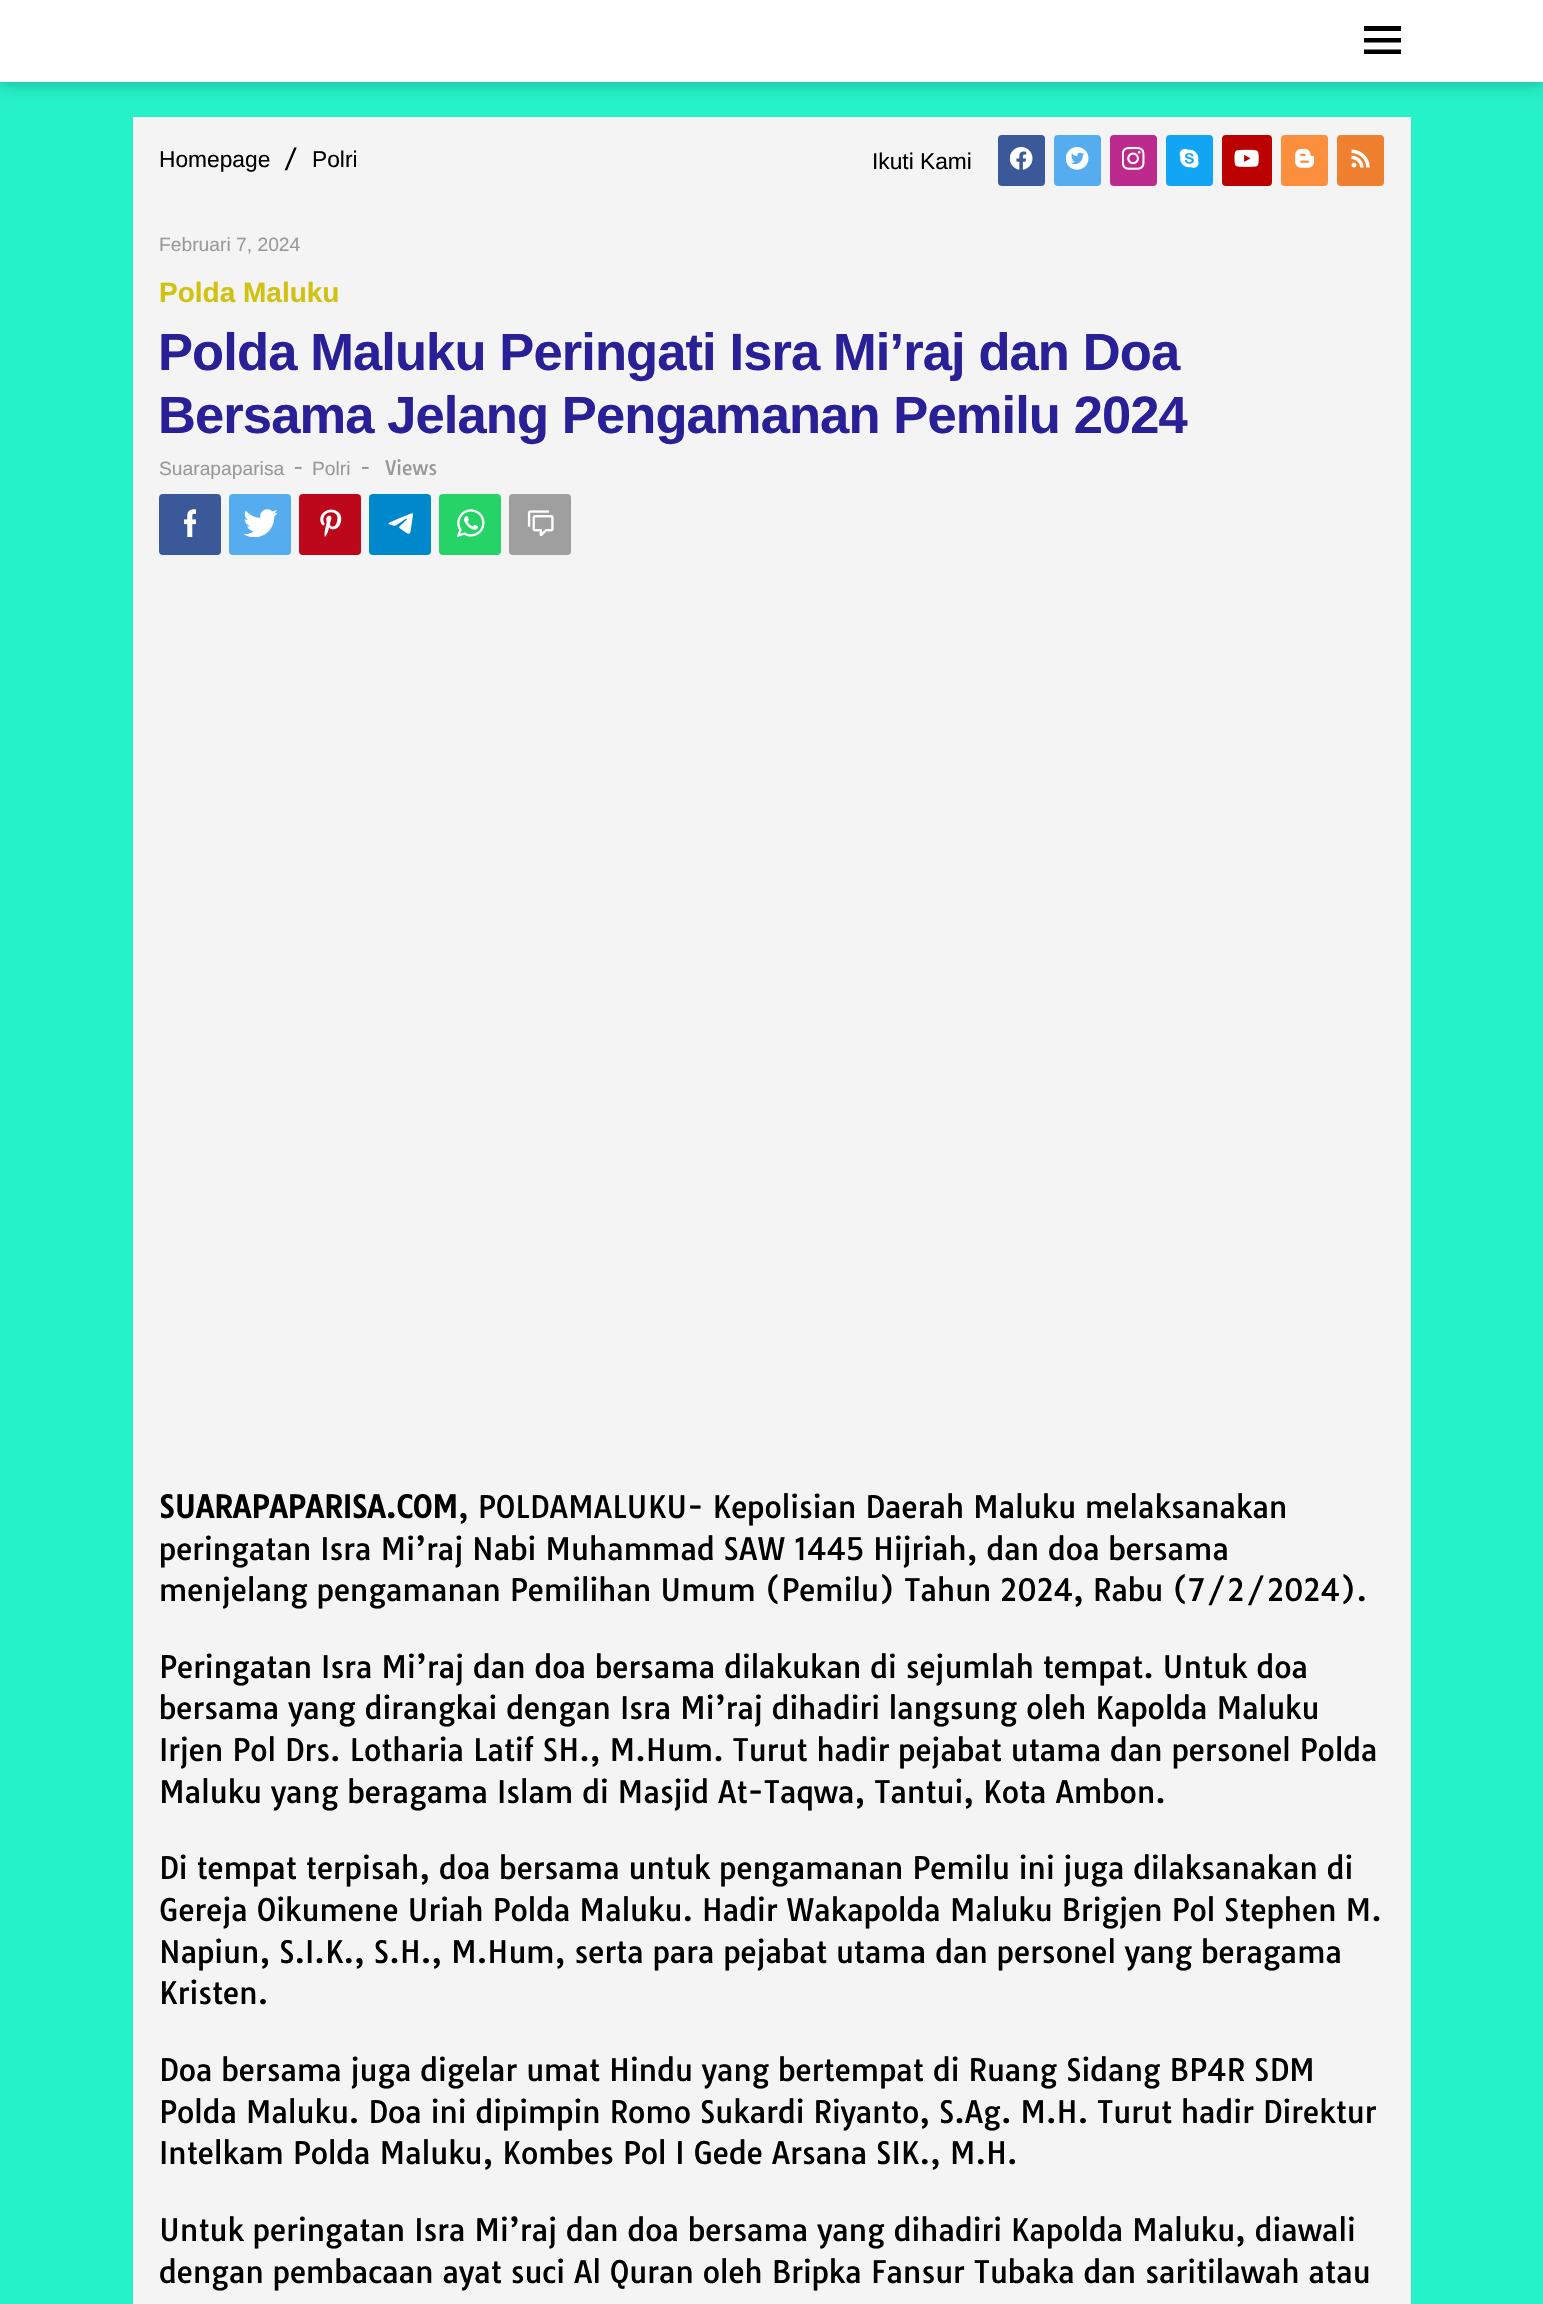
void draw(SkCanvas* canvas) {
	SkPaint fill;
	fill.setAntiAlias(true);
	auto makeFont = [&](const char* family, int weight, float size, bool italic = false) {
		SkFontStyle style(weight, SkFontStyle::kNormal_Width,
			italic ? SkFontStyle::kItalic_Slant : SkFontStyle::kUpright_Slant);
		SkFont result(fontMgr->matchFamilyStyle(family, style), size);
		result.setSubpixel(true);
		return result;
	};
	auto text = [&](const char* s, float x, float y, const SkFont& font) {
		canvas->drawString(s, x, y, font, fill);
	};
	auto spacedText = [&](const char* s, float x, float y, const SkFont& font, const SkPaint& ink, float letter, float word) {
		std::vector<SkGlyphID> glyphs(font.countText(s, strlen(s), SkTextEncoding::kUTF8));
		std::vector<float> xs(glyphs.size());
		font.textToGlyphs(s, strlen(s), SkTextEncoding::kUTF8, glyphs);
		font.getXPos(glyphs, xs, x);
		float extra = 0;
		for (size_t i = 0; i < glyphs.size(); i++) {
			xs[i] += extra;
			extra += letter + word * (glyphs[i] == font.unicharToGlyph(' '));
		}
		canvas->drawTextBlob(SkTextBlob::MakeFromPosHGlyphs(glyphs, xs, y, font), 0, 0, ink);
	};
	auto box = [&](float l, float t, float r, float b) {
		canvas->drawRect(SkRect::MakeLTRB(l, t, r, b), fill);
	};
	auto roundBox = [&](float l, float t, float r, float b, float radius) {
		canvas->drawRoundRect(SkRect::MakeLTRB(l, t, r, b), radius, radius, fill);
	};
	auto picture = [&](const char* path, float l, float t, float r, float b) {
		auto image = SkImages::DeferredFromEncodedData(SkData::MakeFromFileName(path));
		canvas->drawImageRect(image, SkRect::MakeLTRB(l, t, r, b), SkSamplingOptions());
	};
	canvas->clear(0xFF26F2C9);
	fill.setColor(0x4D000000);
	fill.setMaskFilter(SkMaskFilter::MakeBlur(kNormal_SkBlurStyle, 9));
	canvas->drawRect(SkRect::MakeLTRB(0, 0, 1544, 82), fill);
	fill.setMaskFilter(nullptr);
	fill.setColor(0xFFFFFFFF);
	box(0, 0, 1543, 82);
	fill.setColor(0xFF000000);
	canvas->drawPath(SkPathBuilder().moveTo(1364, 26).lineTo(1401, 26).lineTo(1401, 31).lineTo(1364, 31).close().moveTo(1364, 38).lineTo(1401, 38).lineTo(1401, 42.5f).lineTo(1364, 42.5f).close().moveTo(1364, 49.5f).lineTo(1401, 49.5f).lineTo(1401, 54).lineTo(1364, 54).close().detach(), fill);
	fill.setColor(0xFFF4F4F4);
	box(133, 117, 1411, 2304);
	fill.setColor(0xFF3B5998);
	roundBox(998, 135, 1045, 186, 4);
	picture("image0.png", 1010, 147, 1033, 170);
	fill.setColor(0xFF55ACEE);
	roundBox(1054, 135, 1101, 186, 4);
	picture("image1.png", 1066, 147, 1089, 170);
	fill.setColor(0xFFBC2A8D);
	roundBox(1110, 135, 1157, 186, 4);
	picture("image2.png", 1122, 147, 1145, 170);
	fill.setColor(0xFF12A5F4);
	roundBox(1166, 135, 1213, 186, 4);
	picture("image3.png", 1179, 148, 1199, 168);
	fill.setColor(0xFFBB0000);
	roundBox(1222, 135, 1272, 186, 4);
	picture("image4.png", 1234, 149, 1259, 167);
	fill.setColor(0xFFFB8F3D);
	roundBox(1281, 135, 1328, 186, 4);
	picture("image5.png", 1295, 148, 1315, 168);
	fill.setColor(0xFFEE802F);
	roundBox(1337, 135, 1384, 186, 4);
	picture("image6.png", 1351, 149, 1370, 168);
	fill.setColor(0xFF3B5998);
	roundBox(159, 494, 221, 555, 4);
	picture("image7.png", 184, 509, 196, 537);
	fill.setColor(0xFF55ACEE);
	roundBox(229, 494, 291, 555, 4);
	picture("image8.png", 243, 509, 277, 537);
	fill.setColor(0xFFBD081C);
	roundBox(299, 494, 361, 555, 4);
	picture("image9.png", 320, 509, 342, 537);
	fill.setColor(0xFF0088CC);
	roundBox(369, 494, 431, 555, 4);
	picture("image10.png", 388, 513, 413, 534);
	fill.setColor(0xFF25D366);
	roundBox(439, 494, 501, 555, 4);
	picture("image11.png", 457, 509, 485, 537);
	fill.setColor(0xFF9F9F9F);
	roundBox(509, 494, 571, 555, 4);
	picture("image12.png", 527, 510, 554, 536);
	auto font1 = makeFont("Liberation Sans", 400, 22.75f);
	fill.setColor(0xFF000000);
	text("Homepage", 159, 167, font1);
	auto font2 = makeFont("Tauri", 400, 22.75f);
	text("/", 282, 167, font2);
	text("Polri", 312, 167, font1);
	text("Ikuti Kami", 872, 169, font1);
	auto font3 = makeFont("Liberation Sans", 400, 19.25f);
	fill.setColor(0xFF999999);
	text("Februari 7, 2024", 159, 251, font3);
	auto font4 = makeFont("Liberation Sans", 700, 28);
	fill.setColor(0xFFD1C110);
	text("Polda Maluku", 159, 302, font4);
	auto font5 = makeFont("Liberation Sans", 700, 52.5f);
	fill.setColor(0xFF291F96);
	spacedText("Polda Maluku Peringati Isra Mi’raj dan Doa", 158, 370, font5, fill, -0.9f, 0);
	spacedText("Bersama Jelang Pengamanan Pemilu 2024", 158, 433, font5, fill, -0.9f, 0);
	fill.setColor(0xFF999999);
	text("Suarapaparisa", 159, 475, font3);
	auto font6 = makeFont("Tauri", 400, 19.25f);
	text("-", 293, 475, font6);
	text("Polri", 312, 475, font3);
	text("-", 360, 475, font6);
	text("Views", 385, 475, font6);
	auto font7 = makeFont("Tauri", 700, 29.75f);
	fill.setColor(0xFF000000);
	text("SUARAPAPARISA.COM", 159, 1518, font7);
	auto font8 = makeFont("Tauri", 400, 29.75f);
	text(", POLDAMALUKU- Kepolisian Daerah Maluku melaksanakan", 458, 1518, font8);
	text("peringatan Isra Mi’raj Nabi Muhammad SAW 1445 Hijriah, dan doa bersama", 159, 1560, font8);
	text("menjelang pengamanan Pemilihan Umum (Pemilu) Tahun 2024, Rabu (7/2/2024).", 159, 1601, font8);
	text("Peringatan Isra Mi’raj dan doa bersama dilakukan di sejumlah tempat. Untuk doa", 159, 1678, font8);
	text("bersama yang dirangkai dengan Isra Mi’raj dihadiri langsung oleh Kapolda Maluku", 159, 1719, font8);
	text("Irjen Pol Drs. Lotharia Latif SH., M.Hum. Turut hadir pejabat utama dan personel Polda", 159, 1761, font8);
	text("Maluku yang beragama Islam di Masjid At-Taqwa, Tantui, Kota Ambon.", 159, 1803, font8);
	text("Di tempat terpisah, doa bersama untuk pengamanan Pemilu ini juga dilaksanakan di", 159, 1879, font8);
	text("Gereja Oikumene Uriah Polda Maluku. Hadir Wakapolda Maluku Brigjen Pol Stephen M.", 159, 1921, font8);
	text("Napiun, S.I.K., S.H., M.Hum, serta para pejabat utama dan personel yang beragama", 159, 1963, font8);
	text("Kristen.", 159, 2004, font8);
	text("Doa bersama juga digelar umat Hindu yang bertempat di Ruang Sidang BP4R SDM", 159, 2081, font8);
	text("Polda Maluku. Doa ini dipimpin Romo Sukardi Riyanto, S.Ag. M.H. Turut hadir Direktur", 159, 2123, font8);
	text("Intelkam Polda Maluku, Kombes Pol I Gede Arsana SIK., M.H.", 159, 2164, font8);
	text("Untuk peringatan Isra Mi’raj dan doa bersama yang dihadiri Kapolda Maluku, diawali", 159, 2241, font8);
	text("dengan pembacaan ayat suci Al Quran oleh Bripka Fansur Tubaka dan saritilawah atau", 159, 2283, font8);
}
